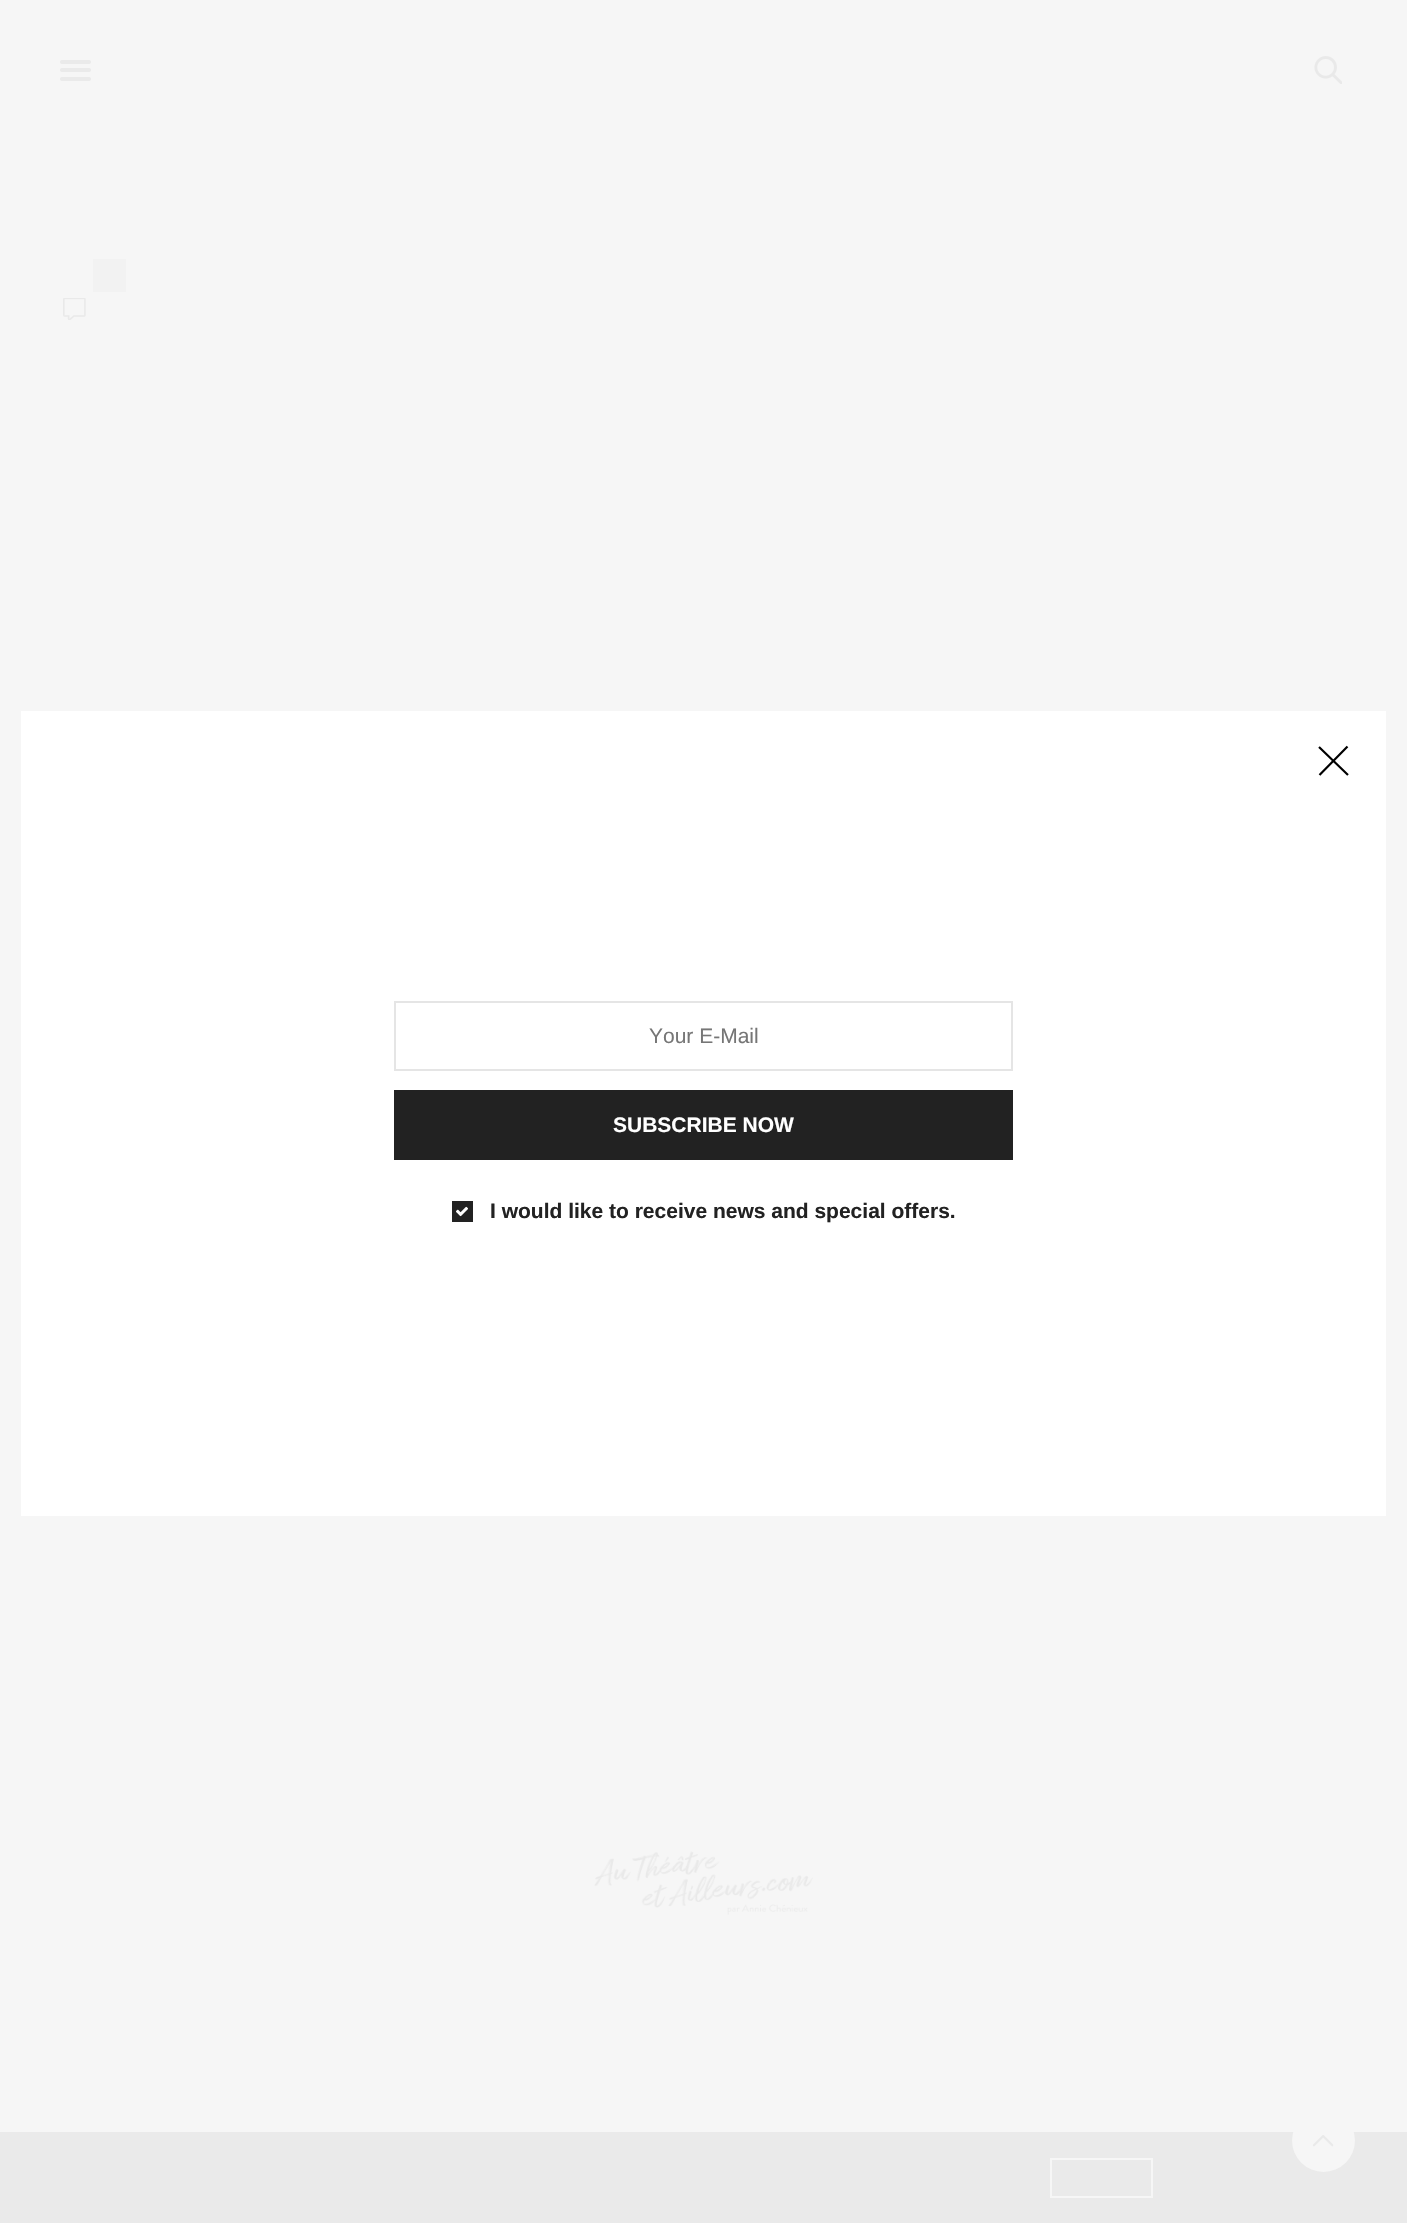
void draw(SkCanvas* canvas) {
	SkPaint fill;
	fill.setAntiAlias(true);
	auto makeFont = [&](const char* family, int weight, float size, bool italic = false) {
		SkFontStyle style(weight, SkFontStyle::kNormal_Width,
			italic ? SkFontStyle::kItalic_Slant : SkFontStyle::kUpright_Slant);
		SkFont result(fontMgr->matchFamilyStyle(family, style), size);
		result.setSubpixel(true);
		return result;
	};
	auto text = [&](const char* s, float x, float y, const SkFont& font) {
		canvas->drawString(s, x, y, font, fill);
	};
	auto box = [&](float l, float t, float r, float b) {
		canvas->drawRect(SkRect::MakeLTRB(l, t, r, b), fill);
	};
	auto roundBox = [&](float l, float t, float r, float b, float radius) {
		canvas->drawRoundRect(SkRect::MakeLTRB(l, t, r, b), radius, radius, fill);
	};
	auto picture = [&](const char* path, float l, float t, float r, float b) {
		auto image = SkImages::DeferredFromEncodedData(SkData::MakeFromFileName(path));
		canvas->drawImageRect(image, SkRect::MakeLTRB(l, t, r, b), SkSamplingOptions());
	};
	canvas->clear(0xFFF6F6F6);
	fill.setColor(0xFFEAEAEA);
	roundBox(60, 60, 91, 64, 2);
	roundBox(60, 68, 91, 72, 2);
	roundBox(60, 77, 91, 81, 2);
	picture("image0.png", 1314, 56, 1342, 84);
	fill.setColor(0xFFF2F2F2);
	box(93, 259, 126, 292);
	picture("image1.png", 63, 298, 86, 320);
	picture("image2.png", 594, 1851, 813, 1915);
	fill.setColor(0xFFFFFFFF);
	box(21, 711, 1386, 1516);
	fill.setStyle(SkPaint::kStroke_Style);
	fill.setStrokeWidth(2.2f);
	fill.setColor(0xFF000000);
	canvas->drawPath(SkPathBuilder().moveTo(1319, 747).lineTo(1348, 775).moveTo(1319.5f, 775).lineTo(1347.5f, 746.5f).detach(), fill);
	fill.setStrokeWidth(2);
	fill.setColor(0xFFE5E5E5);
	canvas->drawRect(SkRect::MakeLTRB(395, 1002, 1012, 1070), fill);
	fill.setStyle(SkPaint::kFill_Style);
	fill.setColor(0xFF222222);
	box(394, 1090, 1013, 1160);
	box(452, 1201, 473, 1222);
	picture("image3.png", 456, 1206, 468, 1217);
	fill.setColor(0xFFEAEAEA);
	box(0, 2132, 1407, 2223);
	fill.setColor(0xFFF6F6F6);
	canvas->drawCircle(1323.5f, 2140.5f, 31.5f, fill);
	picture("image4.png", 1312, 2135, 1334, 2147);
	fill.setStyle(SkPaint::kStroke_Style);
	canvas->drawRect(SkRect::MakeLTRB(1051, 2159, 1152, 2197), fill);
	auto font1 = makeFont("Liberation Sans", 400, 21);
	fill.setStyle(SkPaint::kFill_Style);
	fill.setColor(0xFF767676);
	text("Your E-Mail", 649, 1043, font1);
	auto font2 = makeFont("Liberation Sans", 700, 21);
	fill.setColor(0xFFFFFFFF);
	text("SUBSCRIBE NOW", 613, 1132, font2);
	fill.setColor(0xFF222222);
	text("I would like to receive news and special offers.", 490, 1218, font2);
}
